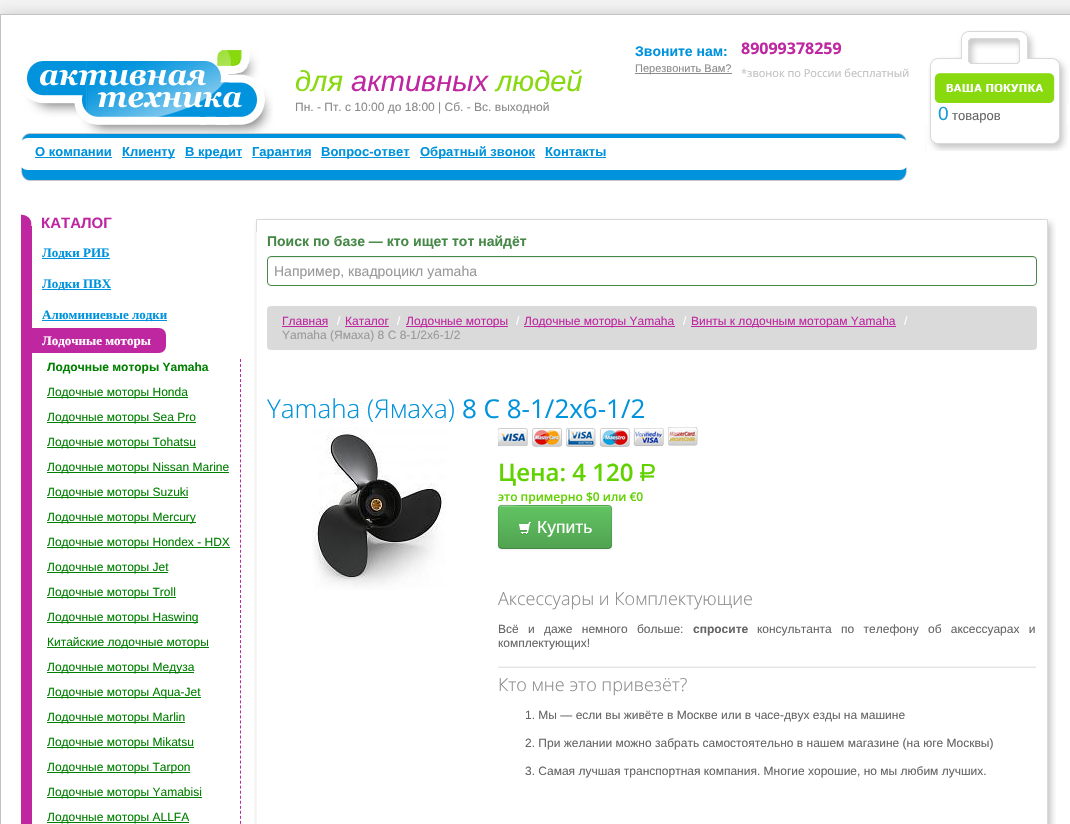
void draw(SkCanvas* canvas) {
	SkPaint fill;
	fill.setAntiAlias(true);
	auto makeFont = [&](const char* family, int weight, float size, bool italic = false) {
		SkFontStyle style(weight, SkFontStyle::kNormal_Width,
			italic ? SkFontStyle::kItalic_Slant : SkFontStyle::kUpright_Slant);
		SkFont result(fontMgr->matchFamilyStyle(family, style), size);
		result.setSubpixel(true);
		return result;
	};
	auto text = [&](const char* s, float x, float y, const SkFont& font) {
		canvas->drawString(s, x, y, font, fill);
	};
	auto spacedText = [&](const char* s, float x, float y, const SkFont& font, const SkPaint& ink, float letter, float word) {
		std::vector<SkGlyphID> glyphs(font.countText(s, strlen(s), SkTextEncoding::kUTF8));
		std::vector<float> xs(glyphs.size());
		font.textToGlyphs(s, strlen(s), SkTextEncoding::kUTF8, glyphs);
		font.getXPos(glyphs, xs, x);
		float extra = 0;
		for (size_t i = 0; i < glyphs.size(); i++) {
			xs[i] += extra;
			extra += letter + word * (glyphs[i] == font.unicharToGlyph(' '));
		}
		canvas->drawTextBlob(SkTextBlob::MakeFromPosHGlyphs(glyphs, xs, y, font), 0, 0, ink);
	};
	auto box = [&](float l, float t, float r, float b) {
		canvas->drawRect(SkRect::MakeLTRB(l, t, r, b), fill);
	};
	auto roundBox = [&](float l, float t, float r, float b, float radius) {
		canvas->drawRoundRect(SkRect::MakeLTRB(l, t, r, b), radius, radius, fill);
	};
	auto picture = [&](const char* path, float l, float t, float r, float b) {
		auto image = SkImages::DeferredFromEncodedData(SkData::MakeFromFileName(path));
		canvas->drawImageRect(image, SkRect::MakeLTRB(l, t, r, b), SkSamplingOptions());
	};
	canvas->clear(0xFFF3F3F3);
	fill.setColor(0x38323232);
	fill.setMaskFilter(SkMaskFilter::MakeBlur(kNormal_SkBlurStyle, 6.5f));
	canvas->drawRect(SkRect::MakeLTRB(0, 14, 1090, 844), fill);
	fill.setMaskFilter(nullptr);
	fill.setColor(0xFFFFFFFF);
	canvas->drawRect(SkRect::MakeLTRB(0.5f, 14.5f, 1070.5f, 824.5f), fill);
	fill.setStyle(SkPaint::kStroke_Style);
	fill.setStrokeWidth(1);
	fill.setColor(0xFFC3C3C3);
	canvas->drawRect(SkRect::MakeLTRB(0.5f, 14.5f, 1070.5f, 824.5f), fill);
	picture("image0.png", 21, 50, 273, 138);
	fill.setStyle(SkPaint::kFill_Style);
	fill.setColor(0xFF8B8A8A);
	box(635, 73, 732, 74);
	picture("image1.png", 928, 30, 1069, 103);
	picture("image2.png", 928, 103, 1067, 124);
	picture("image3.png", 925, 124, 1068, 151);
	picture("image4.png", 21, 133, 30, 181);
	picture("image5.png", 898, 133, 907, 181);
	picture("image6.png", 30, 133, 898, 181);
	fill.setColor(0xFF0093DD);
	box(35, 157, 112, 158);
	box(122, 157, 175, 158);
	box(185, 157, 242, 158);
	box(252, 157, 311, 158);
	box(321, 157, 410, 158);
	box(420, 157, 535, 158);
	box(545, 157, 606, 158);
	picture("image7.png", 21, 214, 32, 226);
	fill.setColor(0xFFBF27A0);
	box(21, 226, 32, 824);
	fill.setColor(0xFF0093DD);
	box(42, 258, 110, 259);
	box(42, 289, 111, 290);
	box(42, 320, 167, 321);
	fill.setColor(0xFFBF27A1);
	roundBox(22, 328, 166, 353, 7);
	fill.setStyle(SkPaint::kStroke_Style);
	fill.setPathEffect(SkDashPathEffect::Make({{3, 2.02f}}, 0));
	canvas->drawPath(SkPathBuilder().moveTo(240.5f, 359).lineTo(240.5f, 824).detach(), fill);
	fill.setPathEffect(nullptr);
	fill.setStyle(SkPaint::kFill_Style);
	fill.setColor(0xFF008000);
	box(47, 397, 188, 398);
	box(47, 422, 196, 423);
	box(47, 447, 196, 448);
	box(47, 472, 229, 473);
	box(47, 497, 188, 498);
	box(47, 522, 196, 523);
	box(47, 547, 230, 548);
	box(47, 572, 168, 573);
	box(47, 597, 176, 598);
	box(47, 622, 198, 623);
	box(47, 647, 209, 648);
	box(47, 672, 194, 673);
	box(47, 697, 201, 698);
	box(47, 722, 185, 723);
	box(47, 747, 194, 748);
	box(47, 772, 190, 773);
	box(47, 797, 202, 798);
	box(47, 822, 189, 823);
	picture("image8.png", 254, 218, 268, 232);
	picture("image9.png", 268, 218, 1042, 220);
	picture("image10.png", 1042, 218, 1056, 232);
	fill.setColor(0xFFF5F5F5);
	box(254, 232, 257, 824);
	fill.setColor(0xFFECECEC);
	canvas->drawPath(SkPathBuilder().moveTo(271, 258).lineTo(1033, 258).cubicTo(1035, 258, 1036, 259, 1036, 261).cubicTo(1036, 259, 1035, 257, 1033, 257).lineTo(271, 257).cubicTo(269, 257, 268, 259, 268, 261).cubicTo(268, 259, 269, 258, 271, 258).close().detach(), fill);
	fill.setStyle(SkPaint::kStroke_Style);
	fill.setColor(0xFF468847);
	canvas->drawRoundRect(SkRect::MakeLTRB(267.5f, 256.5f, 1036.5f, 285.5f), 3.5f, 3.5f, fill);
	fill.setStyle(SkPaint::kFill_Style);
	fill.setColor(0xFFDADADA);
	roundBox(267, 306, 1037, 350, 4);
	fill.setColor(0xFFBF27A1);
	box(282, 326, 328, 327);
	box(345, 326, 389, 327);
	box(406, 326, 508, 327);
	box(524, 326, 675, 327);
	box(691, 326, 896, 327);
	picture("image11.png", 312, 427, 446, 590);
	picture("image12.png", 498, 427, 698, 447);
	fill.setColor(0x0D000000);
	fill.setMaskFilter(SkMaskFilter::MakeBlur(kNormal_SkBlurStyle, 1));
	canvas->drawRoundRect(SkRect::MakeLTRB(498, 506, 612, 550), 4, 4, fill);
	fill.setMaskFilter(nullptr);
	fill.setColor(0xFF5BB75B);
	roundBox(498, 505, 612, 549, 4);
	canvas->save();
	canvas->clipPath(SkPathBuilder().moveTo(502, 505).lineTo(608, 505).cubicTo(610, 505, 612, 507, 612, 509).lineTo(612, 545).cubicTo(612, 547, 610, 549, 608, 549).lineTo(502, 549).cubicTo(500, 549, 498, 547, 498, 545).lineTo(498, 509).cubicTo(498, 507, 500, 505, 502, 505).close().detach(), true);
	{
		const SkColor colors[] = {0xFF62C462, 0xFF51A351};
		const float stops[] = {0, 1};
		const SkPoint ends[] = {{555, 506}, {555, 548}};
		fill.setShader(SkGradientShader::MakeLinear(ends, colors, stops, 2, SkTileMode::kClamp));
		fill.setAlpha(255);
	}
	box(498, 506, 612, 548);
	canvas->restore();
	fill.setShader(nullptr);
	fill.setColor(0x33FFFFFF);
	canvas->drawPath(SkPathBuilder().moveTo(502, 507).lineTo(608, 507).cubicTo(610, 507, 611, 508, 611, 510).cubicTo(611, 508, 610, 506, 608, 506).lineTo(520, 506).cubicTo(518, 506, 499, 501, 499, 510).cubicTo(499, 508, 500, 507, 502, 507).close().detach(), fill);
	fill.setStyle(SkPaint::kStroke_Style);
	fill.setColor(0x40000000);
	canvas->drawPath(SkPathBuilder().moveTo(610.5f, 547.5f).lineTo(608.5f, 548.5f).lineTo(519.5f, 548.5f).lineTo(502, 548.5f).lineTo(499.5f, 547.5f).detach(), fill);
	fill.setColor(0x1A000000);
	canvas->drawPath(SkPathBuilder().moveTo(499.5f, 547.5f).cubicTo(497.5f, 545.5f, 498.5f, 540.5f, 498.5f, 539).lineTo(498.5f, 527).cubicTo(498.5f, 501.5f, 494, 505.5f, 519.5f, 505.5f).lineTo(590.5f, 505.5f).cubicTo(616, 505.5f, 611.5f, 501.5f, 611.5f, 527).lineTo(611.5f, 539).cubicTo(611.5f, 540.5f, 612.5f, 545.5f, 610.5f, 547.5f).detach(), fill);
	picture("image13.png", 519, 522, 531, 535);
	picture("image14.png", 498, 666, 1036, 668);
	picture("image15.png", 1047, 232, 1056, 824);
	auto font1 = makeFont("Liberation Sans", 400, 29, true);
	fill.setStyle(SkPaint::kFill_Style);
	fill.setColor(0xFF88D90F);
	text("для", 295, 91, font1);
	fill.setColor(0xFFBF27A1);
	text("активных", 351, 91, font1);
	fill.setColor(0xFF88D90F);
	text("людей", 496, 91, font1);
	auto font2 = makeFont("Liberation Sans", 700, 14);
	fill.setColor(0xFF0093DD);
	text("Звоните нам:", 635, 56, font2);
	auto font3 = makeFont("Liberation Sans", 400, 11);
	fill.setColor(0xFF8B8A8A);
	text("Перезвонить Вам?", 635, 72, font3);
	auto font4 = makeFont("Open Sans", 700, 16);
	fill.setColor(0xFFBF27A1);
	text("89099378259", 741, 54, font4);
	auto font5 = makeFont("Open Sans", 400, 11);
	fill.setColor(0xFFC1C1C1);
	text("*звонок по России бесплатный", 741, 77, font5);
	auto font6 = makeFont("Liberation Sans", 400, 12);
	fill.setColor(0xFF8B8A8A);
	text("Пн. - Пт. с 10:00 до 18:00 | Cб. - Вс. выходной", 295, 111, font6);
	auto font7 = makeFont("Liberation Sans", 400, 19);
	fill.setColor(0xFF189ADB);
	text("0", 938, 120, font7);
	auto font8 = makeFont("Liberation Sans", 400, 13);
	fill.setColor(0xFF656565);
	text("товаров", 952, 120, font8);
	auto font9 = makeFont("Liberation Sans", 700, 13);
	fill.setColor(0xFF0093DD);
	text("О компании", 35, 156, font9);
	text("Клиенту", 122, 156, font9);
	text("В кредит", 185, 156, font9);
	text("Гарантия", 252, 156, font9);
	text("Вопрос-ответ", 321, 156, font9);
	text("Обратный звонок", 420, 156, font9);
	text("Контакты", 545, 156, font9);
	auto font10 = makeFont("Liberation Sans", 700, 15);
	fill.setColor(0xFFBF27A1);
	text("КАТАЛОГ", 41, 228, font10);
	auto font11 = makeFont("Liberation Serif", 700, 13);
	fill.setColor(0xFF0093DD);
	text("Лодки РИБ", 42, 257, font11);
	text("Лодки ПВХ", 42, 288, font11);
	text("Алюминиевые лодки", 42, 319, font11);
	fill.setColor(0xFFFFFFFF);
	text("Лодочные моторы", 42, 345, font11);
	auto font12 = makeFont("Liberation Sans", 700, 12);
	fill.setColor(0xFF008000);
	text("Лодочные моторы Yamaha", 47, 371, font12);
	text("Лодочные моторы Honda", 47, 396, font6);
	text("Лодочные моторы Sea Pro", 47, 421, font6);
	text("Лодочные моторы Tohatsu", 47, 446, font6);
	text("Лодочные моторы Nissan Marine", 47, 471, font6);
	text("Лодочные моторы Suzuki", 47, 496, font6);
	text("Лодочные моторы Mercury", 47, 521, font6);
	text("Лодочные моторы Hondex - HDX", 47, 546, font6);
	text("Лодочные моторы Jet", 47, 571, font6);
	text("Лодочные моторы Troll", 47, 596, font6);
	text("Лодочные моторы Haswing", 47, 621, font6);
	text("Китайские лодочные моторы", 47, 646, font6);
	text("Лодочные моторы Медуза", 47, 671, font6);
	text("Лодочные моторы Aqua-Jet", 47, 696, font6);
	text("Лодочные моторы Marlin", 47, 721, font6);
	text("Лодочные моторы Mikatsu", 47, 746, font6);
	text("Лодочные моторы Tarpon", 47, 771, font6);
	text("Лодочные моторы Yamabisi", 47, 796, font6);
	text("Лодочные моторы ALLFA", 47, 821, font6);
	fill.setColor(0xFF468847);
	text("Поиск по базе — кто ищет тот найдёт", 267, 246, font2);
	auto font13 = makeFont("Liberation Sans", 400, 14);
	fill.setColor(0xFF999999);
	text("Например, квадроцикл yamaha", 274, 276, font13);
	fill.setColor(0xFFBF27A1);
	text("Главная", 282, 325, font6);
	fill.setColor(0xFFFFFFFF);
	text("/", 337, 325, font6);
	fill.setColor(0xFFBF27A1);
	text("Каталог", 345, 325, font6);
	fill.setColor(0xFFFFFFFF);
	text("/", 397, 325, font6);
	fill.setColor(0xFFBF27A1);
	text("Лодочные моторы", 406, 325, font6);
	fill.setColor(0xFFFFFFFF);
	text("/", 516, 325, font6);
	fill.setColor(0xFFBF27A1);
	text("Лодочные моторы Yamaha", 524, 325, font6);
	fill.setColor(0xFFFFFFFF);
	text("/", 683, 325, font6);
	fill.setColor(0xFFBF27A1);
	text("Винты к лодочным моторам Yamaha", 691, 325, font6);
	fill.setColor(0xFFFFFFFF);
	text("/", 904, 325, font6);
	fill.setColor(0xFF999999);
	text("Yamaha (Ямаха) 8 C 8-1/2x6-1/2", 282, 339, font6);
	auto font14 = makeFont("Open Sans", 300, 26);
	fill.setColor(0xFF0093DD);
	text("Yamaha (Ямаха)", 267, 418, font14);
	auto font15 = makeFont("Open Sans", 400, 26);
	text("8 C 8-1/2x6-1/2", 462, 418, font15);
	auto font16 = makeFont("Open Sans", 600, 24);
	fill.setColor(0xFF62D100);
	text("Цена: 4 120", 498, 481, font16);
	auto font17 = makeFont("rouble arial", 400, 24);
	text("р", 640, 481, font17);
	auto font18 = makeFont("Open Sans", 600, 12);
	text("это примерно $0 или €0", 498, 501, font18);
	auto font19 = makeFont("Liberation Sans", 400, 17.5f);
	fill.setColor(0xFFFFFFFF);
	text("Купить", 537, 533, font19);
	auto font20 = makeFont("Open Sans", 300, 18);
	fill.setColor(0xFF8B8A8A);
	text("Аксессуары и Комплектующие", 498, 605, font20);
	fill.setColor(0xFF656565);
	spacedText("Всё и даже немного больше:", 498, 633, font6, fill, 0, 6);
	text("спросите", 693, 633, font12);
	spacedText("консультанта по телефону об аксессуарах и", 757, 633, font6, fill, 0, 6);
	text("комплектующих!", 498, 647, font6);
	fill.setColor(0xFF8B8A8A);
	text("Кто мне это привезёт?", 498, 691, font20);
	fill.setColor(0xFF656565);
	text("1. Мы — если вы живёте в Москве или в часе-двух езды на машине", 525, 719, font6);
	text("2. При желании можно забрать самостоятельно в нашем магазине (на юге Москвы)", 525, 747, font6);
	text("3. Самая лучшая транспортная компания. Многие хорошие, но мы любим лучших.", 525, 775, font6);
}
